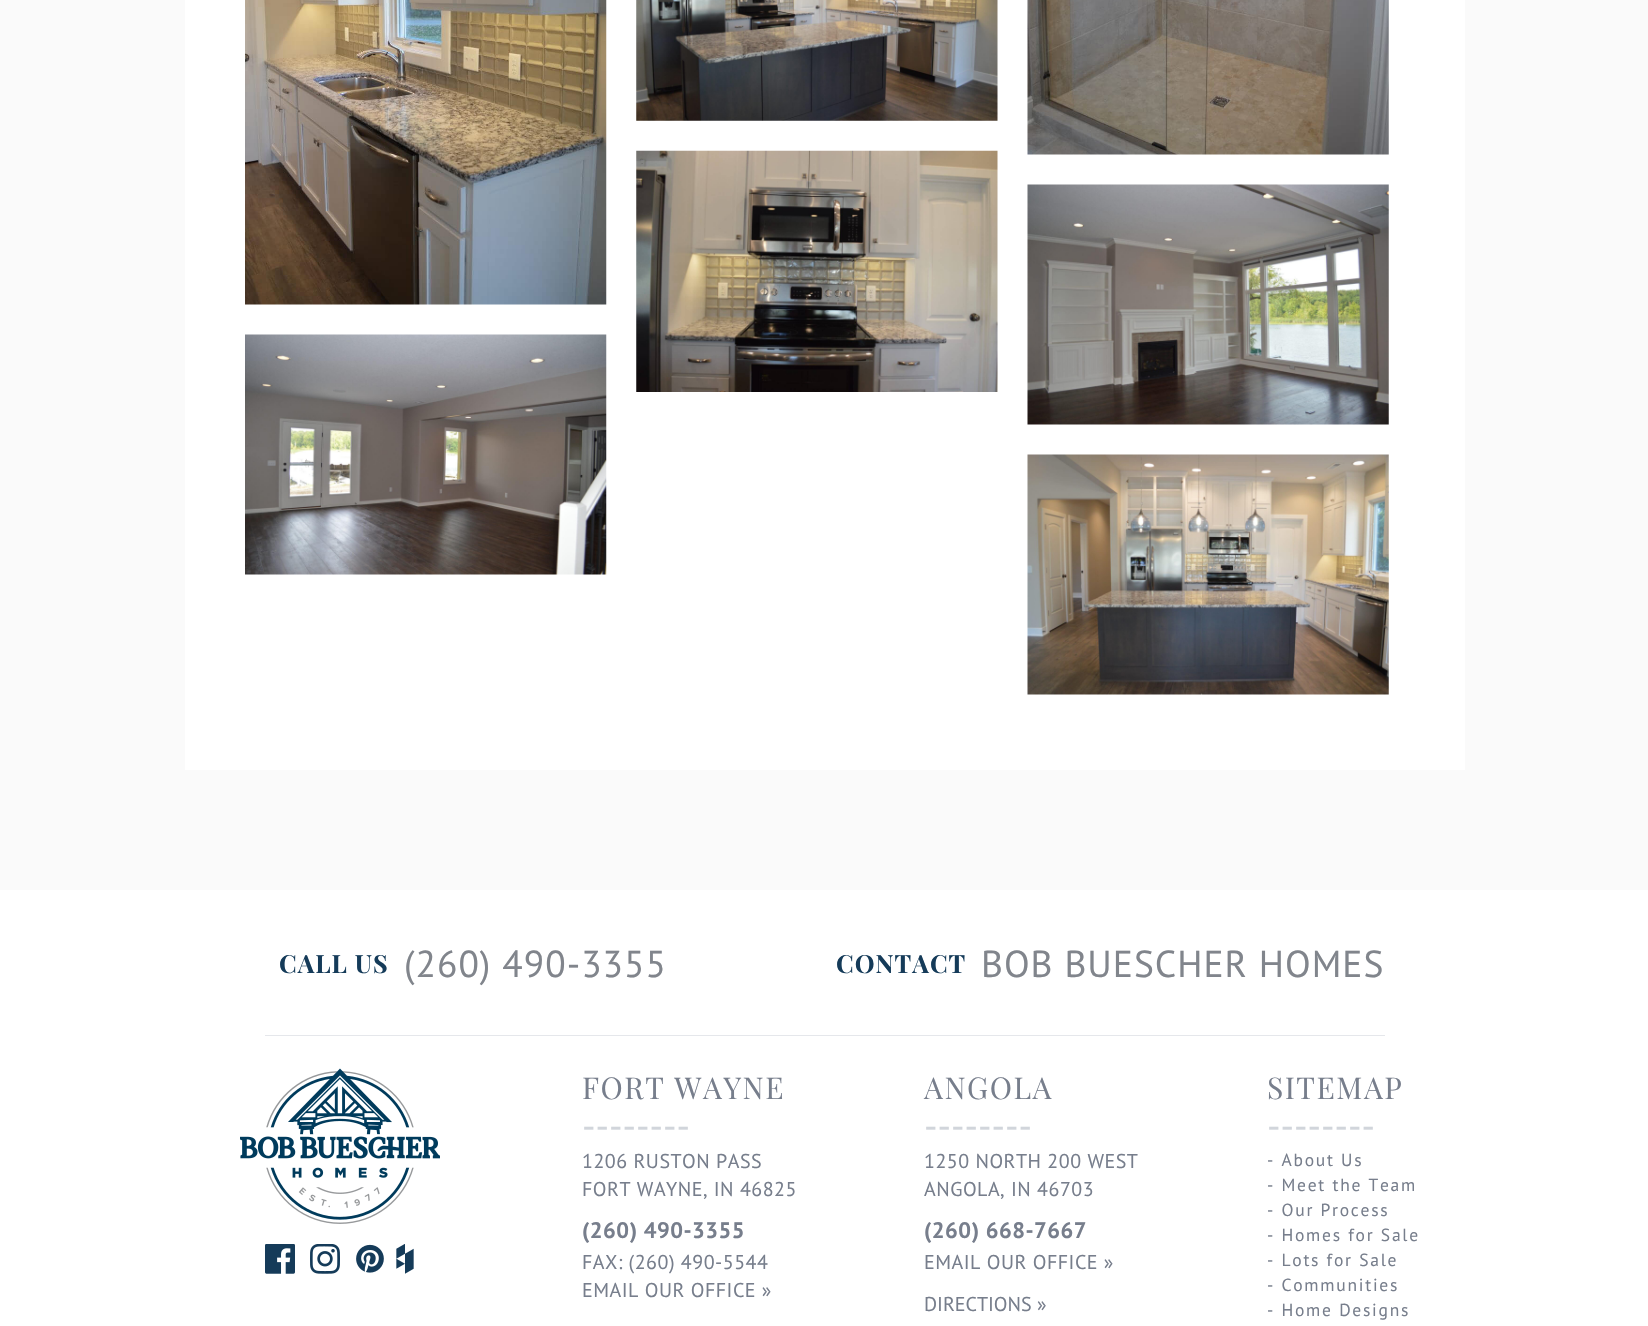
void draw(SkCanvas* canvas) {
	SkPaint fill;
	fill.setAntiAlias(true);
	auto makeFont = [&](const char* family, int weight, float size, bool italic = false) {
		SkFontStyle style(weight, SkFontStyle::kNormal_Width,
			italic ? SkFontStyle::kItalic_Slant : SkFontStyle::kUpright_Slant);
		SkFont result(fontMgr->matchFamilyStyle(family, style), size);
		result.setSubpixel(true);
		return result;
	};
	auto text = [&](const char* s, float x, float y, const SkFont& font) {
		canvas->drawString(s, x, y, font, fill);
	};
	auto spacedText = [&](const char* s, float x, float y, const SkFont& font, const SkPaint& ink, float letter, float word) {
		std::vector<SkGlyphID> glyphs(font.countText(s, strlen(s), SkTextEncoding::kUTF8));
		std::vector<float> xs(glyphs.size());
		font.textToGlyphs(s, strlen(s), SkTextEncoding::kUTF8, glyphs);
		font.getXPos(glyphs, xs, x);
		float extra = 0;
		for (size_t i = 0; i < glyphs.size(); i++) {
			xs[i] += extra;
			extra += letter + word * (glyphs[i] == font.unicharToGlyph(' '));
		}
		canvas->drawTextBlob(SkTextBlob::MakeFromPosHGlyphs(glyphs, xs, y, font), 0, 0, ink);
	};
	auto box = [&](float l, float t, float r, float b) {
		canvas->drawRect(SkRect::MakeLTRB(l, t, r, b), fill);
	};
	auto picture = [&](const char* path, float l, float t, float r, float b) {
		auto image = SkImages::DeferredFromEncodedData(SkData::MakeFromFileName(path));
		canvas->drawImageRect(image, SkRect::MakeLTRB(l, t, r, b), SkSamplingOptions());
	};
	canvas->clear(0xFFFFFFFF);
	fill.setColor(0xFFFAFAFA);
	box(0, 0, 1648, 890);
	fill.setColor(0xFFFFFFFF);
	box(185, 0, 1465, 770);
	picture("image0.png", 245, 0, 607, 305);
	picture("image1.png", 245, 334, 607, 575);
	picture("image2.png", 636, 0, 998, 121);
	picture("image3.png", 636, 150, 998, 392);
	picture("image4.png", 1027, 0, 1389, 155);
	picture("image5.png", 1027, 184, 1389, 425);
	picture("image6.png", 1027, 454, 1389, 695);
	fill.setColor(0xFFE5E7EB);
	box(265, 1035, 1385, 1036);
	picture("image7.png", 240, 1068, 440, 1224);
	picture("image8.png", 265, 1244, 295, 1274);
	picture("image9.png", 310, 1244, 340, 1274);
	picture("image10.png", 356, 1244, 384, 1273);
	picture("image11.png", 396, 1244, 414, 1274);
	auto font1 = makeFont("Playfair Display", 700, 25);
	fill.setColor(0xFF153B59);
	spacedText("CALL US", 279, 973, font1, fill, 1, 0);
	auto font2 = makeFont("PT Sans", 400, 37.5f);
	fill.setColor(0xFF81858C);
	spacedText("(260) 490-3355", 404, 977, font2, fill, 1, 0);
	fill.setColor(0xFF153B59);
	spacedText("CONTACT", 836, 973, font1, fill, 1, 0);
	fill.setColor(0xFF81858C);
	spacedText("BOB BUESCHER HOMES", 981, 977, font2, fill, 1, 0);
	auto font3 = makeFont("Playfair Display", 400, 30);
	fill.setColor(0xFF777E8C);
	spacedText("FORT WAYNE", 582, 1099, font3, fill, 1.5f, 0);
	fill.setColor(0xFFD1D5DB);
	text("--------", 582, 1139, font2);
	auto font4 = makeFont("PT Sans", 400, 20);
	fill.setColor(0xFF777E8C);
	spacedText("1206 RUSTON PASS", 582, 1168, font4, fill, 0.5f, 0);
	spacedText("FORT WAYNE, IN 46825", 582, 1196, font4, fill, 0.5f, 0);
	auto font5 = makeFont("PT Sans", 700, 22.5f);
	spacedText("(260) 490-3355", 582, 1238, font5, fill, 0.5f, 0);
	spacedText("FAX: (260) 490-5544", 582, 1269, font4, fill, 0.5f, 0);
	spacedText("EMAIL OUR OFFICE »", 582, 1297, font4, fill, 0.5f, 0);
	spacedText("ANGOLA", 924, 1099, font3, fill, 1.5f, 0);
	fill.setColor(0xFFD1D5DB);
	text("--------", 924, 1139, font2);
	fill.setColor(0xFF777E8C);
	spacedText("1250 NORTH 200 WEST", 924, 1168, font4, fill, 0.5f, 0);
	spacedText("ANGOLA, IN 46703", 924, 1196, font4, fill, 0.5f, 0);
	spacedText("(260) 668-7667", 924, 1238, font5, fill, 0.5f, 0);
	spacedText("EMAIL OUR OFFICE »", 924, 1269, font4, fill, 0.5f, 0);
	text("DIRECTIONS »", 924, 1311, font4);
	spacedText("SITEMAP", 1267, 1099, font3, fill, 1.5f, 0);
	fill.setColor(0xFFD1D5DB);
	text("--------", 1267, 1139, font2);
	auto font6 = makeFont("PT Sans", 400, 17.5f);
	fill.setColor(0xFF777E8C);
	spacedText("- About Us", 1267, 1166, font6, fill, 1.75f, 0);
	spacedText("- Meet the Team", 1267, 1191, font6, fill, 1.75f, 0);
	spacedText("- Our Process", 1267, 1216, font6, fill, 1.75f, 0);
	spacedText("- Homes for Sale", 1267, 1241, font6, fill, 1.75f, 0);
	spacedText("- Lots for Sale", 1267, 1266, font6, fill, 1.75f, 0);
	spacedText("- Communities", 1267, 1291, font6, fill, 1.75f, 0);
	spacedText("- Home Designs", 1267, 1316, font6, fill, 1.75f, 0);
}
